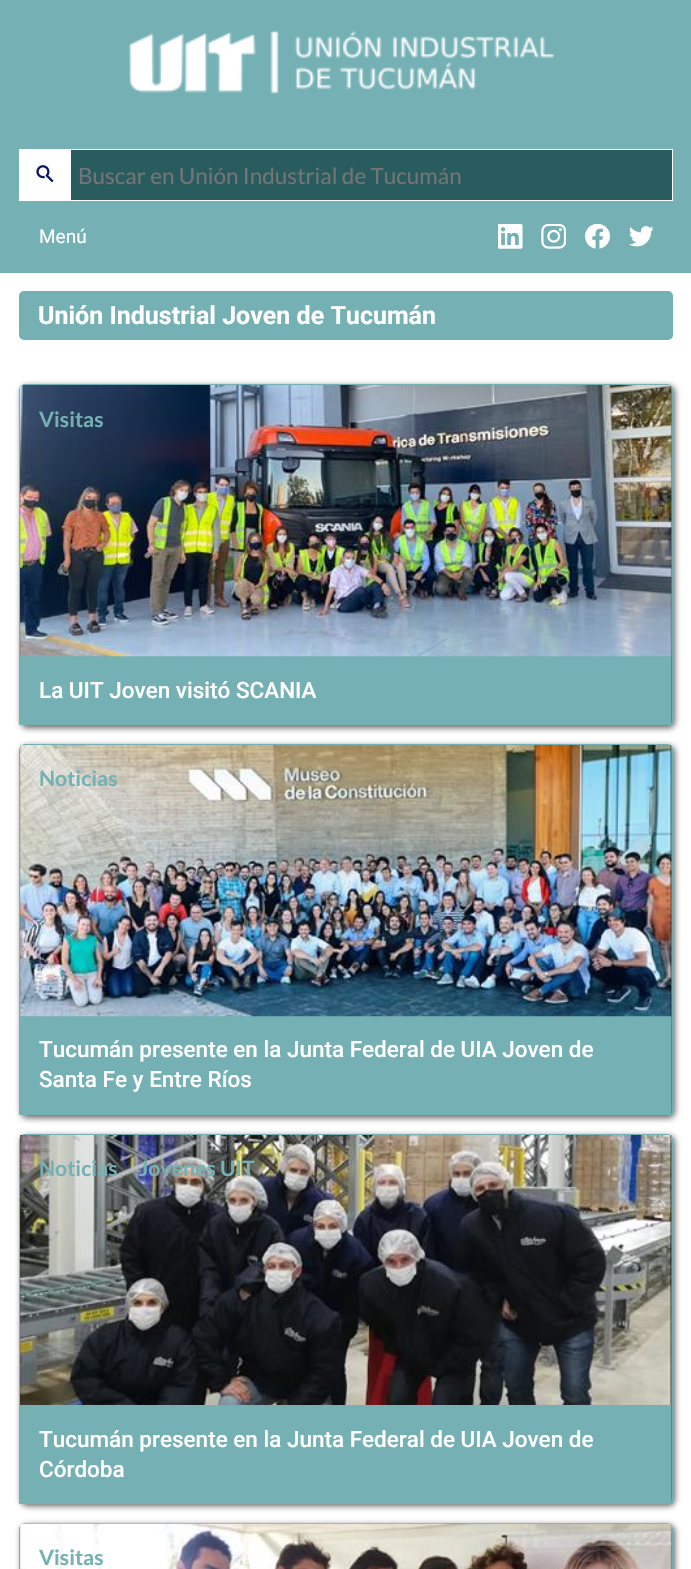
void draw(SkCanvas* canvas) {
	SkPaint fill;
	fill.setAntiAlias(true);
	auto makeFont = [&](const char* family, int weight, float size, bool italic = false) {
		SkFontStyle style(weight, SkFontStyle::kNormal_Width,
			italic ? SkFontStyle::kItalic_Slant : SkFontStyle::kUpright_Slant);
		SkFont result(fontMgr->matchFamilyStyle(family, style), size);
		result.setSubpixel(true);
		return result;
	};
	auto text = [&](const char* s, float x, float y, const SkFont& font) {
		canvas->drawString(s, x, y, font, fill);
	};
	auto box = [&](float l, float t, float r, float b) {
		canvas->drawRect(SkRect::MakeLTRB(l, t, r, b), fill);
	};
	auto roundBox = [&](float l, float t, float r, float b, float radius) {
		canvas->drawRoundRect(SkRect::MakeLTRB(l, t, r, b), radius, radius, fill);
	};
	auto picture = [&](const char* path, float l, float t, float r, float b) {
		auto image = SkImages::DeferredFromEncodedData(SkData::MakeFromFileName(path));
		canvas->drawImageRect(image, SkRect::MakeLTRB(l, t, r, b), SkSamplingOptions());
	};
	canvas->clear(0xFFFFFFFF);
	fill.setColor(0xFF74B0B4);
	box(0, 0, 691, 273);
	picture("image0.png", 128, 30, 554, 94);
	fill.setColor(0xFF295C5E);
	box(71, 150, 672, 200);
	fill.setStyle(SkPaint::kStroke_Style);
	fill.setStrokeWidth(1);
	fill.setColor(0xFFFFFFFF);
	canvas->drawRect(SkRect::MakeLTRB(19.5f, 149.5f, 672.5f, 200.5f), fill);
	fill.setStyle(SkPaint::kFill_Style);
	box(20, 150, 71, 200);
	picture("image1.png", 36, 165, 54, 183);
	picture("image2.png", 498, 224, 523, 249);
	picture("image3.png", 541, 224, 566, 249);
	picture("image4.png", 585, 224, 610, 249);
	picture("image5.png", 629, 226, 654, 247);
	fill.setColor(0xFF74B0B4);
	roundBox(19, 291, 673, 340, 5);
	fill.setColor(0xBF323232);
	fill.setMaskFilter(SkMaskFilter::MakeBlur(kNormal_SkBlurStyle, 3));
	canvas->drawRoundRect(SkRect::MakeLTRB(21, 386, 675, 728), 6, 6, fill);
	fill.setMaskFilter(nullptr);
	fill.setStyle(SkPaint::kStroke_Style);
	fill.setColor(0xFF74B0B4);
	canvas->drawPath(SkPathBuilder().moveTo(25, 384.5f).lineTo(667, 384.5f).cubicTo(670, 384.5f, 672.5f, 387, 672.5f, 390).lineTo(672.5f, 724.5f).lineTo(19.5f, 724.5f).lineTo(19.5f, 390).cubicTo(19.5f, 387, 22, 384.5f, 25, 384.5f).close().detach(), fill);
	fill.setStyle(SkPaint::kFill_Style);
	box(20, 656, 671, 724);
	picture("image6.png", 20, 385, 672, 657);
	fill.setColor(0xBF323232);
	fill.setMaskFilter(SkMaskFilter::MakeBlur(kNormal_SkBlurStyle, 3));
	canvas->drawRoundRect(SkRect::MakeLTRB(21, 746, 675, 1118), 6, 6, fill);
	fill.setMaskFilter(nullptr);
	fill.setStyle(SkPaint::kStroke_Style);
	fill.setColor(0xFF74B0B4);
	canvas->drawPath(SkPathBuilder().moveTo(25, 744.5f).lineTo(667, 744.5f).cubicTo(670, 744.5f, 672.5f, 747, 672.5f, 750).lineTo(672.5f, 1114.5f).lineTo(19.5f, 1114.5f).lineTo(19.5f, 750).cubicTo(19.5f, 747, 22, 744.5f, 25, 744.5f).close().detach(), fill);
	fill.setStyle(SkPaint::kFill_Style);
	box(20, 1016, 671, 1114);
	picture("image7.png", 20, 745, 672, 1017);
	fill.setColor(0xBF323232);
	fill.setMaskFilter(SkMaskFilter::MakeBlur(kNormal_SkBlurStyle, 3));
	canvas->drawRoundRect(SkRect::MakeLTRB(21, 1136, 675, 1506), 6, 6, fill);
	fill.setMaskFilter(nullptr);
	fill.setStyle(SkPaint::kStroke_Style);
	fill.setColor(0xFF74B0B4);
	canvas->drawPath(SkPathBuilder().moveTo(25, 1134.5f).lineTo(667, 1134.5f).cubicTo(670, 1134.5f, 672.5f, 1137, 672.5f, 1140).lineTo(672.5f, 1503.5f).lineTo(19.5f, 1503.5f).lineTo(19.5f, 1140).cubicTo(19.5f, 1137, 22, 1134.5f, 25, 1134.5f).close().detach(), fill);
	picture("image8.png", 20, 1135, 672, 1405);
	fill.setStyle(SkPaint::kFill_Style);
	box(20, 1405, 671, 1503);
	fill.setColor(0xBF323232);
	fill.setMaskFilter(SkMaskFilter::MakeBlur(kNormal_SkBlurStyle, 3));
	canvas->drawRoundRect(SkRect::MakeLTRB(21, 1525, 675, 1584), 6, 6, fill);
	fill.setMaskFilter(nullptr);
	fill.setStyle(SkPaint::kStroke_Style);
	fill.setColor(0xFF74B0B4);
	canvas->drawPath(SkPathBuilder().moveTo(25, 1523.5f).lineTo(667, 1523.5f).cubicTo(670, 1523.5f, 672.5f, 1526, 672.5f, 1529).lineTo(672.5f, 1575.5f).lineTo(19.5f, 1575.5f).lineTo(19.5f, 1529).cubicTo(19.5f, 1526, 22, 1523.5f, 25, 1523.5f).close().detach(), fill);
	picture("image9.png", 20, 1523, 672, 1569);
	auto font1 = makeFont("Lato", 400, 22.5f);
	fill.setStyle(SkPaint::kFill_Style);
	fill.setColor(0xFF757575);
	text("Buscar en Unión Industrial de Tucumán", 78, 184, font1);
	auto font2 = makeFont("Roboto", 400, 19);
	fill.setColor(0xFFFFFFFF);
	text("Menú", 39, 243, font2);
	auto font3 = makeFont("Roboto", 700, 25);
	text("Unión Industrial Joven de Tucumán", 38, 324, font3);
	auto font4 = makeFont("Lato", 700, 21.25f);
	fill.setColor(0xFF74B0B4);
	text("Visitas", 39, 427, font4);
	auto font5 = makeFont("Roboto", 500, 22.5f);
	fill.setColor(0xFFFFFFFF);
	text("La UIT Joven visitó SCANIA", 39, 698, font5);
	fill.setColor(0xFF74B0B4);
	text("Noticias", 39, 786, font4);
	fill.setColor(0xFFFFFFFF);
	text("Tucumán presente en la Junta Federal de UIA Joven de", 39, 1057, font5);
	text("Santa Fe y Entre Ríos", 39, 1087, font5);
	fill.setColor(0xFF74B0B4);
	text("Noticias", 39, 1176, font4);
	text("Jovenes UIT", 139, 1176, font4);
	fill.setColor(0xFFFFFFFF);
	text("Tucumán presente en la Junta Federal de UIA Joven de", 39, 1447, font5);
	text("Córdoba", 39, 1477, font5);
	fill.setColor(0xFF74B0B4);
	text("Visitas", 39, 1565, font4);
}
